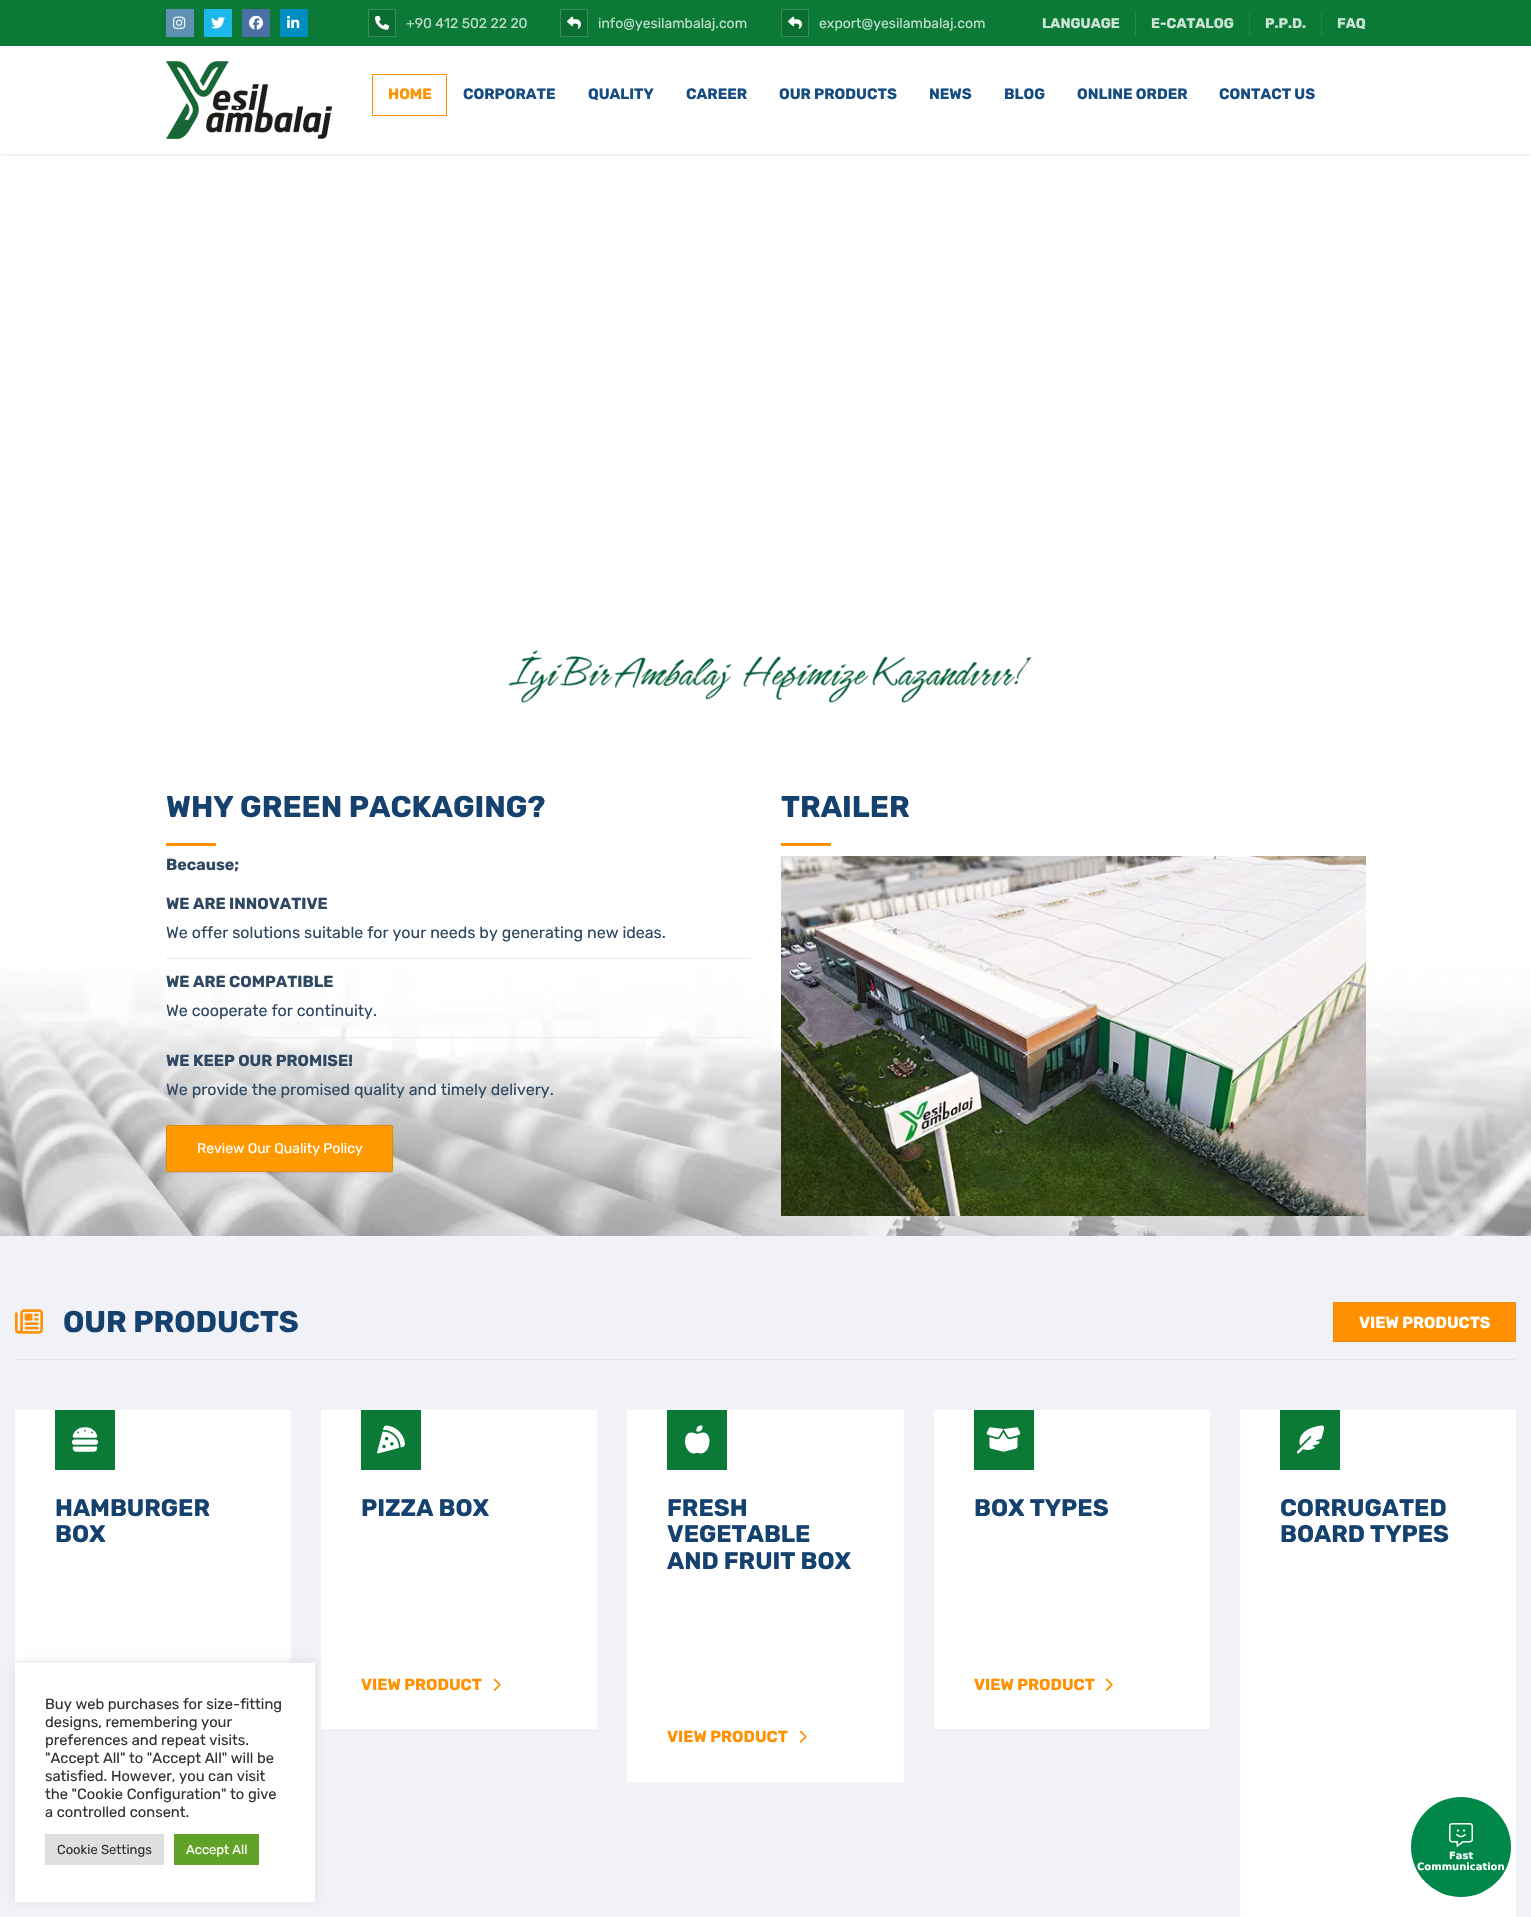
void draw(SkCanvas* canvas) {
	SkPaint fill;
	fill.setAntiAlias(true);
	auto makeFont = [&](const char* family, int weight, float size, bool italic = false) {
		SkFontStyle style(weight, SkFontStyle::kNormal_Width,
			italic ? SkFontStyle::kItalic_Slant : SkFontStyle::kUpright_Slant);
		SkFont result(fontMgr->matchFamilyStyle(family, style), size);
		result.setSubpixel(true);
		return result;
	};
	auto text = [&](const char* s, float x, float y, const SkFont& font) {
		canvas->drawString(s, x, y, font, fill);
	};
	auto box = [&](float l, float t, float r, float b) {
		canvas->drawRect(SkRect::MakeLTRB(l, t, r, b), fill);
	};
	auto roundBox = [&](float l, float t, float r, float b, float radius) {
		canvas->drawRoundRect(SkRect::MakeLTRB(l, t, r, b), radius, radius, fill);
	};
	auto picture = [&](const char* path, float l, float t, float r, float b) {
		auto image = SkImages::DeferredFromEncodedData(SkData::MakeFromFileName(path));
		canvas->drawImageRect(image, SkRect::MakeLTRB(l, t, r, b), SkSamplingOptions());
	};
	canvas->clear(0xFFFFFFFF);
	fill.setColor(0xFF0B7A36);
	box(0, 0, 1531, 46);
	fill.setColor(0xFF5F92B2);
	box(166, 9, 194, 37);
	picture("image0.png", 173, 16, 186, 29);
	fill.setColor(0xFF1CB7EB);
	box(204, 9, 232, 37);
	picture("image1.png", 211, 17, 225, 29);
	fill.setColor(0xFF496FA4);
	box(242, 9, 270, 37);
	picture("image2.png", 249, 15, 263, 30);
	fill.setColor(0xFF008EC1);
	box(280, 9, 308, 37);
	picture("image3.png", 287, 15, 300, 28);
	fill.setColor(0xFF0A6E31);
	canvas->drawRect(SkRect::MakeLTRB(368.5f, 9.5f, 395.5f, 36.5f), fill);
	fill.setStyle(SkPaint::kStroke_Style);
	fill.setStrokeWidth(1);
	fill.setColor(0xFF3B8B5A);
	canvas->drawRect(SkRect::MakeLTRB(368.5f, 9.5f, 395.5f, 36.5f), fill);
	picture("image4.png", 375, 15, 389, 30);
	fill.setStyle(SkPaint::kFill_Style);
	fill.setColor(0xFF0A6E31);
	canvas->drawRect(SkRect::MakeLTRB(560.5f, 9.5f, 587.5f, 36.5f), fill);
	fill.setStyle(SkPaint::kStroke_Style);
	fill.setColor(0xFF3B8B5A);
	canvas->drawRect(SkRect::MakeLTRB(560.5f, 9.5f, 587.5f, 36.5f), fill);
	picture("image5.png", 567, 16, 581, 29);
	fill.setStyle(SkPaint::kFill_Style);
	fill.setColor(0xFF0A6E31);
	canvas->drawRect(SkRect::MakeLTRB(781.5f, 9.5f, 808.5f, 36.5f), fill);
	fill.setStyle(SkPaint::kStroke_Style);
	fill.setColor(0xFF3B8B5A);
	canvas->drawRect(SkRect::MakeLTRB(781.5f, 9.5f, 808.5f, 36.5f), fill);
	picture("image5.png", 788, 16, 802, 29);
	fill.setStyle(SkPaint::kFill_Style);
	fill.setColor(0xFF23874A);
	box(1135, 11, 1136, 36);
	box(1249, 11, 1250, 36);
	box(1321, 11, 1322, 36);
	canvas->save();
	canvas->clipRect(SkRect::MakeLTRB(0, 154, 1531, 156));
	fill.setColor(0x1A000000);
	fill.setMaskFilter(SkMaskFilter::MakeBlur(kNormal_SkBlurStyle, 1));
	canvas->drawRect(SkRect::MakeLTRB(0, 47, 1531, 155), fill);
	fill.setMaskFilter(nullptr);
	canvas->restore();
	picture("image6.png", 166, 61, 332, 139);
	fill.setStyle(SkPaint::kStroke_Style);
	fill.setColor(0xFFFF9100);
	canvas->drawRect(SkRect::MakeLTRB(372.5f, 74.5f, 446.5f, 115.5f), fill);
	picture("image7.png", 508, 649, 1032, 703);
	picture("image8.png", 0, 969, 1531, 1236);
	fill.setStyle(SkPaint::kFill_Style);
	box(166, 843, 216, 846);
	fill.setColor(0xFFEBEBEB);
	box(166, 958, 751, 959);
	box(166, 1037, 751, 1038);
	fill.setColor(0x1A000000);
	fill.setMaskFilter(SkMaskFilter::MakeBlur(kNormal_SkBlurStyle, 1));
	canvas->drawRoundRect(SkRect::MakeLTRB(166, 1126, 393, 1173), 2, 2, fill);
	fill.setMaskFilter(nullptr);
	fill.setColor(0xFFFF9900);
	roundBox(166, 1125, 393, 1172, 2);
	fill.setStyle(SkPaint::kStroke_Style);
	fill.setColor(0x1A000000);
	canvas->drawRoundRect(SkRect::MakeLTRB(166.5f, 1125.5f, 392.5f, 1171.5f), 1.5f, 1.5f, fill);
	fill.setStyle(SkPaint::kFill_Style);
	fill.setColor(0xFFFF9100);
	box(781, 843, 831, 846);
	picture("image9.png", 781, 856, 1366, 1216);
	fill.setColor(0xFFF1F2F8);
	box(0, 1236, 1531, 1917);
	fill.setColor(0xFFE2E4ED);
	box(15, 1359, 1516, 1360);
	picture("image10.png", 15, 1309, 43, 1334);
	fill.setColor(0xFFFF9100);
	canvas->drawRect(SkRect::MakeLTRB(1333.5f, 1302.5f, 1515.5f, 1341.5f), fill);
	fill.setStyle(SkPaint::kStroke_Style);
	fill.setColor(0xFFEF8B09);
	canvas->drawRect(SkRect::MakeLTRB(1333.5f, 1302.5f, 1515.5f, 1341.5f), fill);
	fill.setStyle(SkPaint::kFill_Style);
	fill.setColor(0xFFFFFFFF);
	box(15, 1410, 291, 1663);
	fill.setColor(0xFF0B7A36);
	box(55, 1410, 115, 1470);
	picture("image11.png", 71, 1427, 99, 1452);
	fill.setColor(0xFFFFFFFF);
	box(321, 1410, 597, 1729);
	fill.setColor(0xFF0B7A36);
	box(361, 1410, 421, 1470);
	picture("image12.png", 377, 1425, 405, 1454);
	picture("image13.png", 493, 1678, 501, 1691);
	fill.setColor(0xFFFFFFFF);
	box(627, 1410, 904, 1782);
	fill.setColor(0xFF0B7A36);
	box(667, 1410, 727, 1470);
	picture("image14.png", 685, 1425, 710, 1454);
	picture("image13.png", 799, 1730, 807, 1743);
	fill.setColor(0xFFFFFFFF);
	box(934, 1410, 1210, 1729);
	fill.setColor(0xFF0B7A36);
	box(974, 1410, 1034, 1470);
	picture("image15.png", 986, 1427, 1021, 1452);
	picture("image13.png", 1105, 1678, 1113, 1691);
	fill.setColor(0xFFFFFFFF);
	box(1240, 1410, 1516, 1917);
	fill.setColor(0xFF0B7A36);
	box(1280, 1410, 1340, 1470);
	picture("image16.png", 1296, 1425, 1324, 1454);
	fill.setColor(0x4DACABAB);
	fill.setMaskFilter(SkMaskFilter::MakeBlur(kNormal_SkBlurStyle, 5));
	canvas->drawRect(SkRect::MakeLTRB(15, 1662, 315, 1901), fill);
	fill.setMaskFilter(nullptr);
	fill.setColor(0xFFFFFFFF);
	box(15, 1663, 315, 1902);
	fill.setColor(0xFFDEDFE0);
	box(45, 1834, 164, 1865);
	fill.setColor(0xFF61A229);
	box(174, 1834, 259, 1865);
	fill.setColor(0xFF008749);
	canvas->drawCircle(1461, 1847, 50, fill);
	picture("image17.png", 1449, 1823, 1473, 1847);
	auto font1 = makeFont("Rubik", 300, 14);
	fill.setColor(0xFFC2DECD);
	text("+90 412 502 22 20", 406, 28, font1);
	text("info@yesilambalaj.com", 598, 28, font1);
	text("export@yesilambalaj.com", 819, 28, font1);
	auto font2 = makeFont("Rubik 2", 300, 14);
	fill.setColor(0xFFCEE4D7);
	text("LANGUAGE", 1042, 28, font2);
	text("E-CATALOG", 1151, 28, font2);
	text("P.P.D.", 1265, 28, font2);
	text("FAQ", 1337, 28, font2);
	auto font3 = makeFont("Rubik 2", 300, 15);
	fill.setColor(0xFFFF9100);
	text("HOME", 388, 99, font3);
	fill.setColor(0xFF174C81);
	text("CORPORATE", 463, 99, font3);
	text("QUALITY", 588, 99, font3);
	text("CAREER", 686, 99, font3);
	text("OUR PRODUCTS", 779, 99, font3);
	text("NEWS", 929, 99, font3);
	text("BLOG", 1004, 99, font3);
	text("ONLINE ORDER", 1077, 99, font3);
	text("CONTACT US", 1219, 99, font3);
	auto font4 = makeFont("Rubik 2", 300, 30);
	fill.setColor(0xFF15416E);
	text("WHY GREEN PACKAGING?", 166, 817, font4);
	auto font5 = makeFont("Rubik 2", 300, 16);
	fill.setColor(0xFF2F4862);
	text("Because;", 166, 870, font5);
	text("WE ARE INNOVATIVE", 166, 909, font5);
	auto font6 = makeFont("Rubik", 300, 16);
	text("We offer solutions suitable for your needs by generating new ideas.", 166, 938, font6);
	text("WE ARE COMPATIBLE", 166, 987, font5);
	text("We cooperate for continuity.", 166, 1016, font6);
	text("WE KEEP OUR PROMISE!", 166, 1066, font5);
	text("We provide the promised quality and timely delivery.", 166, 1095, font6);
	fill.setColor(0xFFFFFFFF);
	text("Review Our Quality Policy", 197, 1153, font1);
	fill.setColor(0xFF15416E);
	text("TRAILER", 781, 817, font4);
	text("OUR PRODUCTS", 63, 1332, font4);
	fill.setColor(0xFFFFFFFF);
	text("VIEW PRODUCTS", 1359, 1328, font5);
	auto font7 = makeFont("Rubik 2", 300, 24);
	fill.setColor(0xFF15416E);
	text("HAMBURGER", 55, 1516, font7);
	text("BOX", 55, 1542, font7);
	text("PIZZA BOX", 361, 1516, font7);
	fill.setColor(0xFFFF9100);
	text("VIEW PRODUCT", 361, 1690, font5);
	fill.setColor(0xFF15416E);
	text("FRESH", 667, 1516, font7);
	text("VEGETABLE", 667, 1542, font7);
	text("AND FRUIT BOX", 667, 1569, font7);
	fill.setColor(0xFFFF9100);
	text("VIEW PRODUCT", 667, 1742, font5);
	fill.setColor(0xFF15416E);
	text("BOX TYPES", 974, 1516, font7);
	fill.setColor(0xFFFF9100);
	text("VIEW PRODUCT", 974, 1690, font5);
	fill.setColor(0xFF15416E);
	text("CORRUGATED", 1280, 1516, font7);
	text("BOARD TYPES", 1280, 1542, font7);
	auto font8 = makeFont("Rubik", 300, 14.7f);
	fill.setColor(0xFF333333);
	text("Buy web purchases for size-fitting", 45, 1709, font8);
	text("designs, remembering your", 45, 1727, font8);
	text("preferences and repeat visits.", 45, 1745, font8);
	text("\"Accept All\" to \"Accept All\" will be", 45, 1763, font8);
	text("satisfied. However, you can visit", 45, 1781, font8);
	text("the \"Cookie Configuration\" to give", 45, 1799, font8);
	text("a controlled consent.", 45, 1817, font8);
	auto font9 = makeFont("Rubik", 300, 13);
	text("Cookie Settings", 57, 1854, font9);
	fill.setColor(0xFFFFFFFF);
	text("Accept All", 186, 1854, font9);
	auto font10 = makeFont("DejaVu Sans", 700, 10);
	text("Fast", 1449, 1859, font10);
	text("Communication", 1417, 1870, font10);
}
